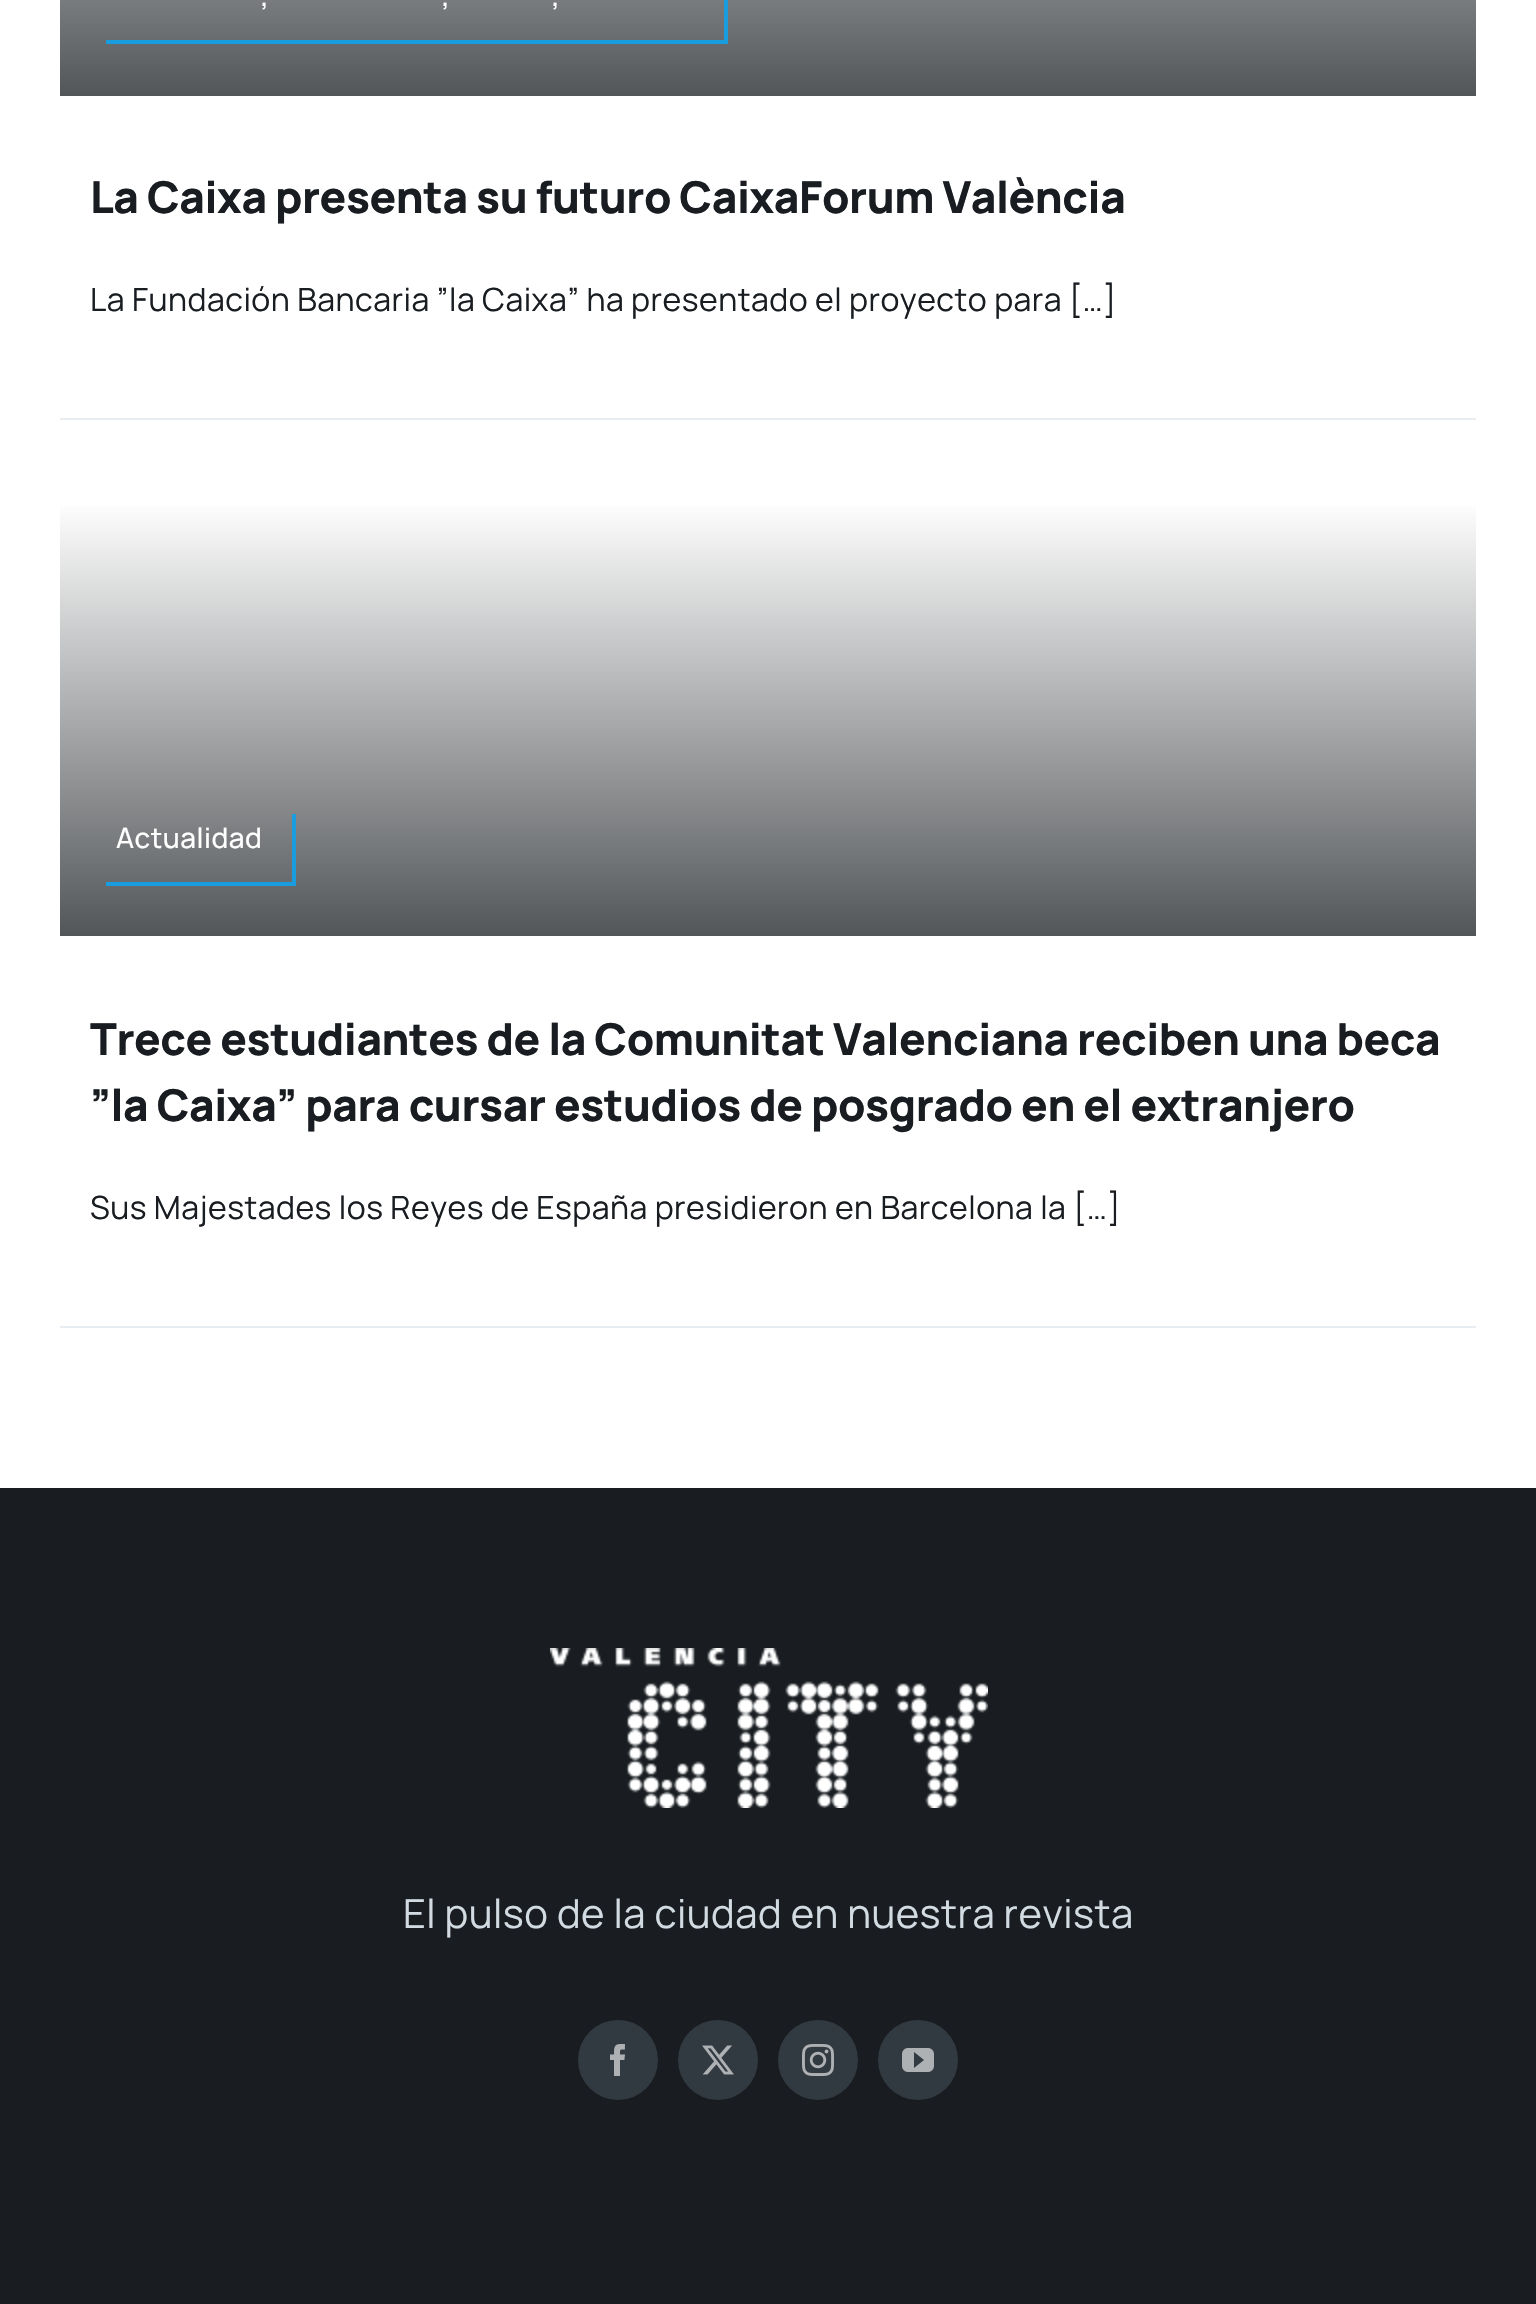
void draw(SkCanvas* canvas) {
	SkPaint fill;
	fill.setAntiAlias(true);
	auto makeFont = [&](const char* family, int weight, float size, bool italic = false) {
		SkFontStyle style(weight, SkFontStyle::kNormal_Width,
			italic ? SkFontStyle::kItalic_Slant : SkFontStyle::kUpright_Slant);
		SkFont result(fontMgr->matchFamilyStyle(family, style), size);
		result.setSubpixel(true);
		return result;
	};
	auto spacedText = [&](const char* s, float x, float y, const SkFont& font, const SkPaint& ink, float letter, float word) {
		std::vector<SkGlyphID> glyphs(font.countText(s, strlen(s), SkTextEncoding::kUTF8));
		std::vector<float> xs(glyphs.size());
		font.textToGlyphs(s, strlen(s), SkTextEncoding::kUTF8, glyphs);
		font.getXPos(glyphs, xs, x);
		float extra = 0;
		for (size_t i = 0; i < glyphs.size(); i++) {
			xs[i] += extra;
			extra += letter + word * (glyphs[i] == font.unicharToGlyph(' '));
		}
		canvas->drawTextBlob(SkTextBlob::MakeFromPosHGlyphs(glyphs, xs, y, font), 0, 0, ink);
	};
	auto box = [&](float l, float t, float r, float b) {
		canvas->drawRect(SkRect::MakeLTRB(l, t, r, b), fill);
	};
	auto picture = [&](const char* path, float l, float t, float r, float b) {
		auto image = SkImages::DeferredFromEncodedData(SkData::MakeFromFileName(path));
		canvas->drawImageRect(image, SkRect::MakeLTRB(l, t, r, b), SkSamplingOptions());
	};
	canvas->clear(0xFFFFFFFF);
	fill.setColor(0xFFE8EDF1);
	box(60, 418, 1476, 420);
	{
		const SkColor colors[] = {0xFFFFFFFF, 0xFF535659};
		const float stops[] = {0, 1};
		const SkPoint ends[] = {{768, -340}, {768, 96}};
		fill.setShader(SkGradientShader::MakeLinear(ends, colors, stops, 2, SkTileMode::kClamp));
		fill.setAlpha(255);
	}
	box(60, 0, 1476, 96);
	fill.setShader(nullptr);
	fill.setColor(0xFF1A9DDF);
	box(724, 0, 728, 44);
	box(106, 40, 728, 44);
	fill.setColor(0xFFE8EDF1);
	box(60, 1326, 1476, 1328);
	{
		const SkColor colors[] = {0xFFFFFFFF, 0xFF535659};
		const float stops[] = {0, 1};
		const SkPoint ends[] = {{768, 500}, {768, 936}};
		fill.setShader(SkGradientShader::MakeLinear(ends, colors, stops, 2, SkTileMode::kClamp));
		fill.setAlpha(255);
	}
	box(60, 506, 1476, 936);
	fill.setShader(nullptr);
	fill.setColor(0xFF1A9DDF);
	box(292, 814, 296, 886);
	box(106, 882, 296, 886);
	fill.setColor(0xFF191D21);
	box(0, 1488, 1536, 2304);
	picture("image0.png", 550, 1648, 988, 1808);
	fill.setColor(0xFF323A41);
	canvas->drawCircle(618, 2060, 40, fill);
	picture("image1.png", 610, 2044, 625, 2076);
	canvas->drawCircle(718, 2060, 40, fill);
	picture("image2.png", 702, 2045, 734, 2075);
	canvas->drawCircle(818, 2060, 40, fill);
	picture("image3.png", 802, 2044, 834, 2076);
	canvas->drawCircle(918, 2060, 40, fill);
	picture("image4.png", 902, 2048, 934, 2072);
	auto font1 = makeFont("Manrope", 500, 28);
	fill.setColor(0xFFFFFFFF);
	spacedText(",", 261, 6, font1, fill, 0.5f, 0);
	spacedText(",", 442, 6, font1, fill, 0.5f, 0);
	spacedText(",", 552, 6, font1, fill, 0.5f, 0);
	auto font2 = makeFont("Manrope", 800, 44);
	fill.setColor(0xFF191D21);
	spacedText("La Caixa presenta su futuro CaixaForum València", 90, 213, font2, fill, -0.45f, 0);
	auto font3 = makeFont("Manrope", 400, 32);
	spacedText("La Fundación Bancaria ”la Caixa” ha presentado el proyecto para […]", 90, 311, font3, fill, 0.48f, 0);
	fill.setColor(0xFFFFFFFF);
	spacedText("Actualidad", 116, 848, font1, fill, 0.5f, 0);
	fill.setColor(0xFF191D21);
	spacedText("Trece estudiantes de la Comunitat Valenciana reciben una beca", 90, 1055, font2, fill, -0.45f, 0);
	spacedText("”la Caixa” para cursar estudios de posgrado en el extranjero", 90, 1121, font2, fill, -0.45f, 0);
	spacedText("Sus Majestades los Reyes de España presidieron en Barcelona la […]", 90, 1219, font3, fill, 0.48f, 0);
	auto font4 = makeFont("Manrope", 400, 40);
	fill.setColor(0xFFD2DBE2);
	spacedText("El pulso de la ciudad en nuestra revista", 403, 1928, font4, fill, 0.48f, 0);
}
